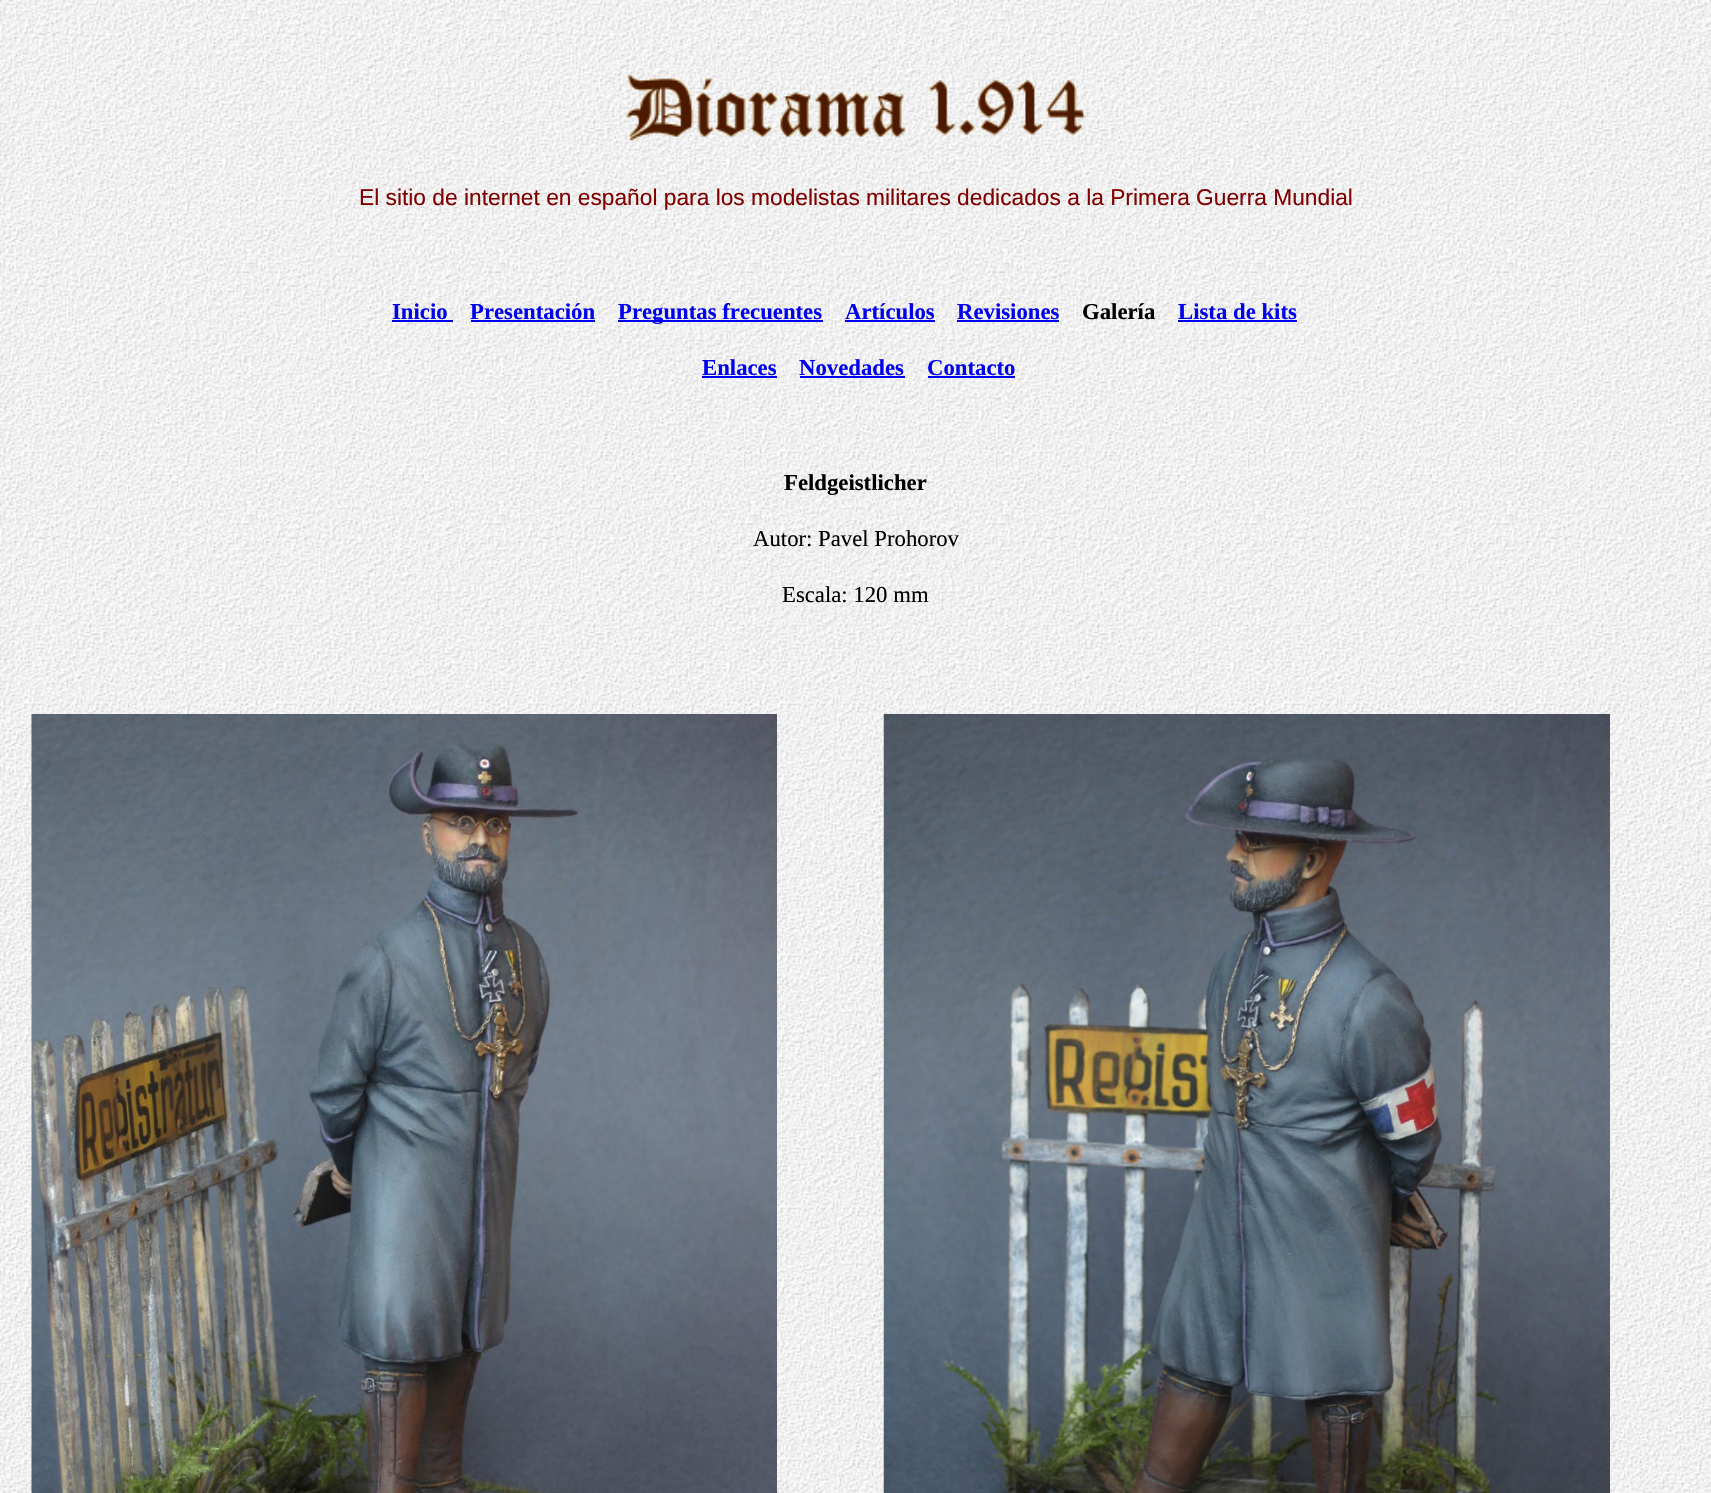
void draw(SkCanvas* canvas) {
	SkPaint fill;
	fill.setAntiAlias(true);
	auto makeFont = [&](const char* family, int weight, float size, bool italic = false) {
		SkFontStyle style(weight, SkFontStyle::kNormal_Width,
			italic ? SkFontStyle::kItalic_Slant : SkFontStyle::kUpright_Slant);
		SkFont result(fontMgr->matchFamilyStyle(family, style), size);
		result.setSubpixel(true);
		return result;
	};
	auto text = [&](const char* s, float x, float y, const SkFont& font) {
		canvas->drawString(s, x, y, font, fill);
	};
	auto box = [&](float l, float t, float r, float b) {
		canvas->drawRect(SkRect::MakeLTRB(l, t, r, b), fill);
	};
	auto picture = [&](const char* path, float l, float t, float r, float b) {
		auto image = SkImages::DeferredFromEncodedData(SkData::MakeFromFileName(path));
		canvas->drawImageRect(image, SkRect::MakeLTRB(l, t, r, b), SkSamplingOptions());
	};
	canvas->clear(0xFFFFFFFF);
	picture("image0.png", 0, 0, 1711, 1493);
	picture("image1.png", 626, 74, 694, 141);
	picture("image2.png", 696, 78, 714, 137);
	picture("image3.png", 715, 92, 746, 137);
	picture("image4.png", 748, 92, 778, 137);
	picture("image5.png", 780, 92, 813, 137);
	picture("image6.png", 815, 92, 871, 137);
	picture("image7.png", 872, 92, 906, 137);
	picture("image8.png", 928, 80, 956, 136);
	picture("image9.png", 958, 120, 976, 136);
	picture("image10.png", 977, 80, 1014, 136);
	picture("image11.png", 1016, 80, 1044, 136);
	picture("image12.png", 1046, 80, 1086, 136);
	fill.setColor(0xFF0000EE);
	box(392, 320, 453, 322);
	box(471, 320, 595, 322);
	box(618, 320, 823, 322);
	box(845, 320, 935, 322);
	box(957, 320, 1059, 322);
	box(1178, 320, 1297, 322);
	box(702, 376, 777, 378);
	box(800, 376, 905, 378);
	box(928, 376, 1015, 378);
	picture("image13.png", 31, 714, 777, 1493);
	picture("image14.png", 883, 714, 1610, 1493);
	auto font1 = makeFont("Liberation Sans", 400, 22.75f);
	fill.setColor(0xFF800000);
	text("El sitio de internet en español para los modelistas militares dedicados a la Primera Guerra Mundial", 359, 205, font1);
	auto font2 = makeFont("Liberation Serif", 700, 22.75f);
	fill.setColor(0xFF0000EE);
	text("Inicio", 392, 319, font2);
	text("Presentación", 470, 319, font2);
	text("Preguntas frecuentes", 618, 319, font2);
	text("Artículos", 845, 319, font2);
	text("Revisiones", 957, 319, font2);
	fill.setColor(0xFF000000);
	text("Galería", 1082, 319, font2);
	fill.setColor(0xFF0000EE);
	text("Lista de kits", 1178, 319, font2);
	text("Enlaces", 702, 375, font2);
	text("Novedades", 799, 375, font2);
	text("Contacto", 927, 375, font2);
	fill.setColor(0xFF000000);
	text("Feldgeistlicher", 784, 490, font2);
	auto font3 = makeFont("Liberation Serif", 400, 22.75f);
	text("Autor: Pavel Prohorov", 753, 546, font3);
	text("Escala: 120 mm", 782, 602, font3);
}
